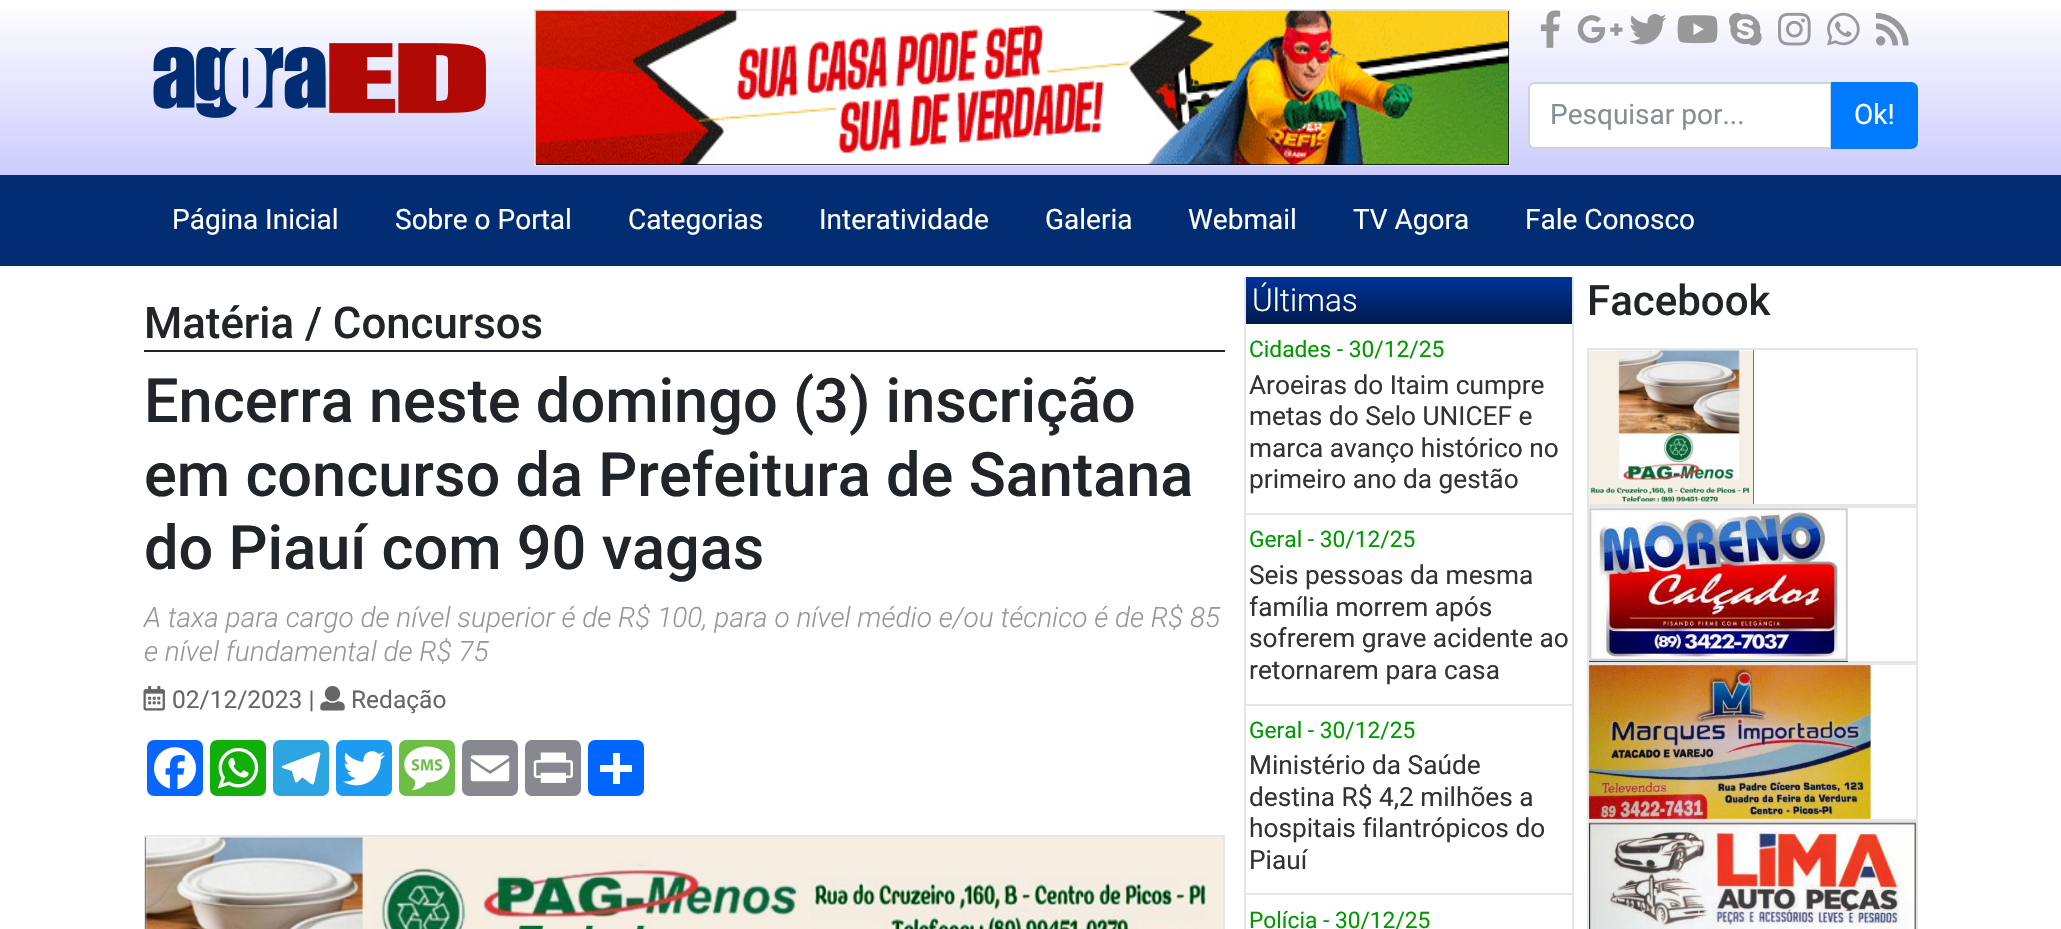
void draw(SkCanvas* canvas) {
	SkPaint fill;
	fill.setAntiAlias(true);
	auto makeFont = [&](const char* family, int weight, float size, bool italic = false) {
		SkFontStyle style(weight, SkFontStyle::kNormal_Width,
			italic ? SkFontStyle::kItalic_Slant : SkFontStyle::kUpright_Slant);
		SkFont result(fontMgr->matchFamilyStyle(family, style), size);
		result.setSubpixel(true);
		return result;
	};
	auto text = [&](const char* s, float x, float y, const SkFont& font) {
		canvas->drawString(s, x, y, font, fill);
	};
	auto box = [&](float l, float t, float r, float b) {
		canvas->drawRect(SkRect::MakeLTRB(l, t, r, b), fill);
	};
	auto roundBox = [&](float l, float t, float r, float b, float radius) {
		canvas->drawRoundRect(SkRect::MakeLTRB(l, t, r, b), radius, radius, fill);
	};
	auto picture = [&](const char* path, float l, float t, float r, float b) {
		auto image = SkImages::DeferredFromEncodedData(SkData::MakeFromFileName(path));
		canvas->drawImageRect(image, SkRect::MakeLTRB(l, t, r, b), SkSamplingOptions());
	};
	canvas->clear(0xFFFFFFFF);
	{
		const SkColor colors[] = {0xFFFFFFFF, 0xFFCCCCFF};
		const float stops[] = {0, 1};
		const SkPoint ends[] = {{1031, 0}, {1031, 175}};
		fill.setShader(SkGradientShader::MakeLinear(ends, colors, stops, 2, SkTileMode::kClamp));
		fill.setAlpha(255);
	}
	box(0, 9, 2061, 175);
	picture("image0.png", 153, 43, 486, 118);
	fill.setStyle(SkPaint::kStroke_Style);
	fill.setStrokeWidth(2);
	fill.setShader(nullptr);
	fill.setColor(0xFFE6E6E6);
	canvas->drawRect(SkRect::MakeLTRB(535, 10, 1509, 165), fill);
	fill.setStyle(SkPaint::kFill_Style);
	fill.setColor(0xFF000000);
	box(536, 11, 1509, 165);
	picture("image1.png", 535, 10, 1509, 165);
	picture("image2.png", 1540, 10, 1561, 48);
	picture("image3.png", 1577, 15, 1623, 44);
	picture("image4.png", 1629, 14, 1667, 45);
	picture("image5.png", 1677, 15, 1718, 44);
	picture("image6.png", 1729, 12, 1762, 46);
	picture("image7.png", 1778, 12, 1811, 46);
	picture("image8.png", 1827, 12, 1860, 46);
	picture("image9.png", 1876, 12, 1909, 46);
	fill.setColor(0xFFFFFFFF);
	canvas->drawPath(SkPathBuilder().moveTo(1535, 83).lineTo(1831, 83).lineTo(1831, 148).lineTo(1535, 148).cubicTo(1531.5f, 148, 1529, 145.5f, 1529, 142).lineTo(1529, 89).cubicTo(1529, 85.5f, 1531.5f, 83, 1535, 83).close().detach(), fill);
	fill.setStyle(SkPaint::kStroke_Style);
	fill.setColor(0xFFCED4DA);
	canvas->drawPath(SkPathBuilder().moveTo(1535, 83).lineTo(1831, 83).lineTo(1831, 148).lineTo(1535, 148).cubicTo(1531.5f, 148, 1529, 145.5f, 1529, 142).lineTo(1529, 89).cubicTo(1529, 85.5f, 1531.5f, 83, 1535, 83).close().detach(), fill);
	fill.setStyle(SkPaint::kFill_Style);
	fill.setColor(0xFF007BFF);
	canvas->drawPath(SkPathBuilder().moveTo(1832, 83).lineTo(1911, 83).cubicTo(1914.5f, 83, 1917, 85.5f, 1917, 89).lineTo(1917, 142).cubicTo(1917, 145.5f, 1914.5f, 148, 1911, 148).lineTo(1832, 148).close().detach(), fill);
	fill.setStyle(SkPaint::kStroke_Style);
	canvas->drawPath(SkPathBuilder().moveTo(1832, 83).lineTo(1911, 83).cubicTo(1914.5f, 83, 1917, 85.5f, 1917, 89).lineTo(1917, 142).cubicTo(1917, 145.5f, 1914.5f, 148, 1911, 148).lineTo(1832, 148).close().detach(), fill);
	fill.setStyle(SkPaint::kFill_Style);
	fill.setColor(0xFF032D72);
	box(0, 175, 2061, 266);
	fill.setColor(0xFF212529);
	box(144, 350, 1225, 352);
	picture("image10.png", 143, 686, 165, 711);
	picture("image11.png", 320, 686, 345, 711);
	fill.setColor(0xFF0866FF);
	roundBox(147, 740, 203, 796, 7);
	picture("image12.png", 154, 747, 196, 790);
	fill.setColor(0xFF12AF0A);
	roundBox(210, 740, 266, 796, 7);
	picture("image13.png", 217, 748, 259, 789);
	fill.setColor(0xFF2CA5E0);
	roundBox(273, 740, 329, 796, 7);
	picture("image14.png", 281, 752, 321, 785);
	fill.setColor(0xFF1D9BF0);
	roundBox(336, 740, 392, 796, 7);
	picture("image15.png", 343, 751, 385, 786);
	fill.setColor(0xFF6CBE45);
	roundBox(399, 740, 455, 796, 7);
	picture("image16.png", 404, 746, 450, 790);
	fill.setColor(0xFF888990);
	roundBox(462, 740, 518, 796, 7);
	picture("image17.png", 470, 755, 510, 782);
	roundBox(525, 740, 581, 796, 7);
	picture("image18.png", 533, 752, 573, 783);
	fill.setColor(0xFF0166FF);
	roundBox(588, 740, 644, 796, 7);
	fill.setColor(0xFFFFFFFF);
	box(613, 753, 620, 784);
	box(600, 765, 632, 772);
	fill.setStyle(SkPaint::kStroke_Style);
	fill.setColor(0xFFE6E6E6);
	canvas->drawRect(SkRect::MakeLTRB(145, 836, 1224, 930), fill);
	fill.setStyle(SkPaint::kFill_Style);
	fill.setColor(0xFF000000);
	box(145, 837, 146, 929);
	picture("image19.png", 145, 836, 1223, 929);
	fill.setColor(0xFFE6E6E6);
	box(1572, 277, 1574, 929);
	box(1244, 277, 1246, 929);
	{
		const SkColor colors[] = {0xFF003399, 0xFF001A4D};
		const float stops[] = {0, 1};
		const SkPoint ends[] = {{1409, 277}, {1409, 324}};
		fill.setShader(SkGradientShader::MakeLinear(ends, colors, stops, 2, SkTileMode::kClamp));
		fill.setAlpha(255);
	}
	box(1246, 277, 1572, 324);
	fill.setShader(nullptr);
	fill.setColor(0xFFE6E6E6);
	box(1246, 513, 1572, 515);
	box(1246, 704, 1572, 706);
	box(1246, 893, 1572, 895);
	fill.setStyle(SkPaint::kStroke_Style);
	canvas->drawRect(SkRect::MakeLTRB(1588, 349, 1917, 505), fill);
	fill.setStyle(SkPaint::kFill_Style);
	fill.setColor(0xFF000000);
	box(1753, 350, 1754, 504);
	picture("image20.png", 1589, 350, 1754, 504);
	fill.setStyle(SkPaint::kStroke_Style);
	fill.setColor(0xFFE6E6E6);
	canvas->drawRect(SkRect::MakeLTRB(1588, 507, 1917, 662), fill);
	fill.setStyle(SkPaint::kFill_Style);
	fill.setColor(0xFF000000);
	box(1589, 661, 1848, 662);
	picture("image21.png", 1589, 507, 1848, 662);
	fill.setStyle(SkPaint::kStroke_Style);
	fill.setColor(0xFFE6E6E6);
	canvas->drawRect(SkRect::MakeLTRB(1588, 664, 1917, 820), fill);
	picture("image22.png", 1589, 665, 1871, 819);
	canvas->drawRect(SkRect::MakeLTRB(1588, 822, 1917, 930), fill);
	picture("image23.png", 1589, 822, 1917, 929);
	auto font1 = makeFont("Roboto", 400, 28);
	fill.setStyle(SkPaint::kFill_Style);
	fill.setColor(0xFF868E96);
	text("Pesquisar por...", 1550, 124, font1);
	fill.setColor(0xFFFFFFFF);
	text("Ok!", 1854, 124, font1);
	text("Página Inicial", 172, 229, font1);
	text("Sobre o Portal", 395, 229, font1);
	text("Categorias", 628, 229, font1);
	text("Interatividade", 819, 229, font1);
	text("Galeria", 1045, 229, font1);
	text("Webmail", 1188, 229, font1);
	text("TV Agora", 1353, 229, font1);
	text("Fale Conosco", 1525, 229, font1);
	auto font2 = makeFont("Roboto", 500, 43.75f);
	fill.setColor(0xFF212529);
	text("Matéria / Concursos", 144, 338, font2);
	auto font3 = makeFont("Roboto", 500, 61.25f);
	text("Encerra neste domingo (3) inscrição", 144, 422, font3);
	text("em concurso da Prefeitura de Santana", 144, 496, font3);
	text("do Piauí com 90 vagas", 144, 569, font3);
	auto font4 = makeFont("Roboto", 300, 28, true);
	fill.setColor(0xFF969696);
	text("A taxa para cargo de nível superior é de R$ 100, para o nível médio e/ou técnico é de R$ 85", 144, 627, font4);
	text("e nível fundamental de R$ 75", 144, 661, font4);
	auto font5 = makeFont("Roboto", 400, 24.5f);
	fill.setColor(0xFF666666);
	text("02/12/2023 |", 172, 708, font5);
	text("Redação", 351, 708, font5);
	auto font6 = makeFont("Roboto", 300, 31.5f);
	fill.setColor(0xFFFFFFFF);
	text("Últimas", 1252, 311, font6);
	auto font7 = makeFont("Roboto", 400, 22.75f);
	fill.setColor(0xFF009900);
	text("Cidades - 30/12/25", 1249, 357, font7);
	auto font8 = makeFont("Roboto", 400, 26.25f);
	fill.setColor(0xFF333333);
	text("Aroeiras do Itaim cumpre", 1249, 394, font8);
	text("metas do Selo UNICEF e", 1249, 425, font8);
	text("marca avanço histórico no", 1249, 457, font8);
	text("primeiro ano da gestão", 1249, 488, font8);
	fill.setColor(0xFF009900);
	text("Geral - 30/12/25", 1249, 547, font7);
	fill.setColor(0xFF333333);
	text("Seis pessoas da mesma", 1249, 584, font8);
	text("família morrem após", 1249, 616, font8);
	text("sofrerem grave acidente ao", 1249, 647, font8);
	text("retornarem para casa", 1249, 679, font8);
	fill.setColor(0xFF009900);
	text("Geral - 30/12/25", 1249, 738, font7);
	fill.setColor(0xFF333333);
	text("Ministério da Saúde", 1249, 774, font8);
	text("destina R$ 4,2 milhões a", 1249, 806, font8);
	text("hospitais filantrópicos do", 1249, 837, font8);
	text("Piauí", 1249, 869, font8);
	fill.setColor(0xFF009900);
	text("Polícia - 30/12/25", 1249, 928, font7);
	auto font9 = makeFont("Roboto", 500, 42);
	fill.setColor(0xFF212529);
	text("Facebook", 1587, 315, font9);
}
